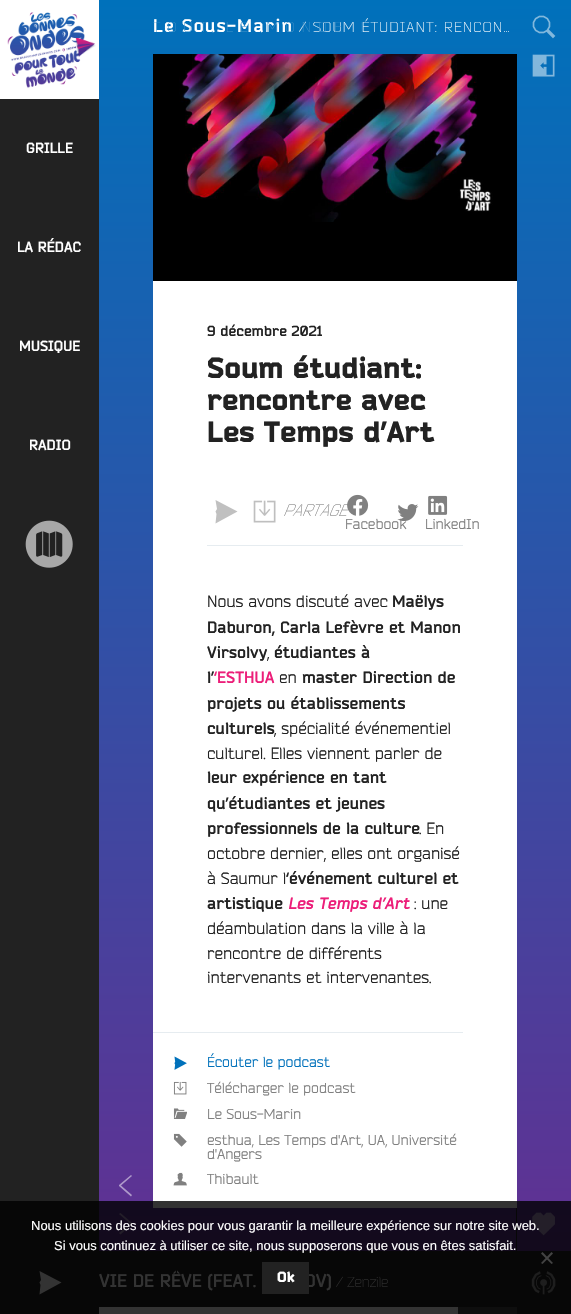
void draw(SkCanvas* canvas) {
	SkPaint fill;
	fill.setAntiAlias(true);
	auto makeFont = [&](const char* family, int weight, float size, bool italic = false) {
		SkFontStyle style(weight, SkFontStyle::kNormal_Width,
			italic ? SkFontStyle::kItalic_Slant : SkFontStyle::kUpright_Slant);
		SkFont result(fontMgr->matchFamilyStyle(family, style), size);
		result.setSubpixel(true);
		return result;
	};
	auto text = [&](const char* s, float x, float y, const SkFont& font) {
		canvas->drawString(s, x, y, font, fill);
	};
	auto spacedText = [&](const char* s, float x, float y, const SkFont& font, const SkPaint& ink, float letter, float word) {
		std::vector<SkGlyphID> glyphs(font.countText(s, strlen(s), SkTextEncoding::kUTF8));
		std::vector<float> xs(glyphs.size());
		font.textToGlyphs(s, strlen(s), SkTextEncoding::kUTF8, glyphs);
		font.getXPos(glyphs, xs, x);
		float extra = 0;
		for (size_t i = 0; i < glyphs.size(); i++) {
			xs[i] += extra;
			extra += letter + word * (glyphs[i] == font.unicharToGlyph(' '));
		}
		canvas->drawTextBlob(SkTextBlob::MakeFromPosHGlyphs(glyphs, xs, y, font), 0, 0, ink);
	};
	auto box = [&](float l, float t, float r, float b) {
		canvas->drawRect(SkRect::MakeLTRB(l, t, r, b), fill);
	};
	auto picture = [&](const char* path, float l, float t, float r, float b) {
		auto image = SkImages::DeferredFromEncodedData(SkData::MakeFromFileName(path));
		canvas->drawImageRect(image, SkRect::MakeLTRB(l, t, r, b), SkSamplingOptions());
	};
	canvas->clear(0xFFFFFFFF);
	{
		const SkColor colors[] = {0xFF0071BB, 0xFF662D90};
		const float stops[] = {0, 1};
		const SkPoint ends[] = {{285, 0}, {286, 1314}};
		fill.setShader(SkGradientShader::MakeLinear(ends, colors, stops, 2, SkTileMode::kClamp));
		fill.setAlpha(255);
	}
	box(99, 54, 571, 1201);
	{
		const SkColor colors[] = {0xFF001725, 0xFF14091D};
		const float stops[] = {0, 1};
		const SkPoint ends[] = {{285, 0}, {286, 1314}};
		fill.setShader(SkGradientShader::MakeLinear(ends, colors, stops, 2, SkTileMode::kClamp));
		fill.setAlpha(255);
	}
	box(99, 1201, 571, 1251);
	{
		const SkColor colors[] = {0xFF0071BB, 0xFF662D90};
		const float stops[] = {0, 1};
		const SkPoint ends[] = {{285, 0}, {286, 1314}};
		fill.setShader(SkGradientShader::MakeLinear(ends, colors, stops, 2, SkTileMode::kClamp));
		fill.setAlpha(255);
	}
	box(99, 0, 571, 54);
	fill.setShader(nullptr);
	fill.setColor(0xFF070707);
	box(516, 1201, 517, 1251);
	fill.setColor(0xFFFFFFFF);
	box(153, 281, 517, 1201);
	fill.setColor(0xFF333333);
	box(153, 1201, 517, 1208);
	picture("image0.png", 153, 54, 517, 281);
	fill.setColor(0xFFE6ECF0);
	box(207, 545, 463, 546);
	fill.setColor(0xFFC0C0C0);
	canvas->drawPath(SkPathBuilder().moveTo(215.5f, 523.5f).lineTo(237.5f, 511.5f).lineTo(215.5f, 500).lineTo(217, 509).lineTo(215.5f, 511.5f).lineTo(216.5f, 514).close().detach(), fill);
	picture("image1.png", 253, 500, 276, 523);
	picture("image4.png", 428, 495, 448, 515);
	fill.setColor(0xFFE6ECF0);
	box(153, 1032, 463, 1033);
	picture("image5.png", 174, 1056, 187, 1070);
	picture("image6.png", 173, 1081, 187, 1095);
	picture("image7.png", 173, 1108, 187, 1119);
	picture("image8.png", 173, 1133, 187, 1147);
	picture("image9.png", 173, 1172, 187, 1186);
	fill.setColor(0xFFAE99CA);
	canvas->drawPath(SkPathBuilder().moveTo(131, 1196.5f).lineTo(119, 1186).lineTo(119, 1185).lineTo(131, 1175).lineTo(132, 1176).lineTo(121, 1185.5f).lineTo(132, 1195).close().detach(), fill);
	fill.setColor(0xFF231E28);
	canvas->drawPath(SkPathBuilder().moveTo(120.5f, 1234.5f).lineTo(119, 1233).lineTo(130, 1223.5f).lineTo(119, 1214).lineTo(120.5f, 1213).lineTo(132, 1223).lineTo(132, 1224).close().detach(), fill);
	picture("image10.png", 532, 15, 556, 39);
	picture("image11.png", 532, 54, 555, 77);
	picture("image12.png", 532, 1212, 555, 1236);
	fill.setColor(0xFF222222);
	box(0, 99, 99, 1201);
	fill.setColor(0xFF070707);
	box(0, 1201, 99, 1251);
	picture("image13.png", 0, 0, 99, 99);
	picture("image14.png", 25, 520, 73, 568);
	box(0, 1251, 571, 1314);
	fill.setColor(0xFF333333);
	canvas->drawPath(SkPathBuilder().moveTo(39.5f, 1294.5f).lineTo(61.5f, 1282.5f).lineTo(39.5f, 1271).lineTo(41, 1280).lineTo(39.5f, 1282.5f).lineTo(40.5f, 1285).close().detach(), fill);
	fill.setColor(0xFF0E0E0E);
	box(458, 1307, 517, 1314);
	fill.setColor(0xFF333333);
	box(99, 1307, 458, 1314);
	picture("image15.png", 531, 1271, 556, 1295);
	fill.setColor(0xFF434343);
	canvas->drawPath(SkPathBuilder().moveTo(551.5f, 1252).lineTo(553, 1253.5f).lineTo(542.5f, 1264).lineTo(541, 1263).close().detach(), fill);
	canvas->drawPath(SkPathBuilder().moveTo(541, 1253.5f).lineTo(542.5f, 1252).lineTo(553, 1263).lineTo(551.5f, 1264).close().detach(), fill);
	auto font1 = makeFont("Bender", 700, 18);
	fill.setColor(0xFFFFFFFF);
	spacedText("Le Sous-Marin", 153, 32, font1, fill, 1.4f, 0);
	auto font2 = makeFont("Bender", 300, 14.4f);
	spacedText("/ SOUM ÉTUDIANT: RENCON…", 299, 32, font2, fill, 1.4f, 0);
	auto font3 = makeFont("Bender", 700, 14.4f);
	fill.setColor(0xFF222222);
	text("9 décembre 2021", 207, 336, font3);
	auto font4 = makeFont("Bender", 900, 28.75f);
	text("Soum étudiant:", 207, 378, font4);
	text("rencontre avec", 207, 410, font4);
	text("Les Temps d’Art", 207, 442, font4);
	auto font5 = makeFont("Bender", 300, 16.25f, true);
	fill.setColor(0xFF808080);
	text("PARTAGE", 283, 516, font5);
	picture("image3.png", 347, 494, 369, 516);
	auto font6 = makeFont("Bender", 400, 14.4f);
	text("Facebook", 345, 529, font6);
	picture("image2.png", 397, 504, 419, 521);
	text("LinkedIn", 425, 529, font6);
	auto font7 = makeFont("Bender", 400, 16.25f);
	fill.setColor(0xFF222222);
	text("Nous avons discuté avec", 207, 607, font7);
	auto font8 = makeFont("Bender", 700, 16.25f);
	text("Maëlys", 392, 607, font8);
	text("Daburon, Carla Lefèvre et Manon", 207, 633, font8);
	text("Virsolvy", 207, 658, font8);
	text(",", 267, 658, font7);
	text("étudiantes à", 274, 658, font8);
	text("l’", 207, 683, font8);
	fill.setColor(0xFFEC1E79);
	text("‘ESTHUA", 214, 683, font8);
	fill.setColor(0xFF222222);
	text("en", 279, 683, font7);
	text("master Direction de", 302, 683, font8);
	text("projets ou établissements", 207, 709, font8);
	text("culturels", 207, 734, font8);
	text(", spécialité événementiel", 274, 734, font7);
	text("culturel. Elles viennent parler de", 207, 759, font7);
	text("leur expérience en tant", 207, 783, font8);
	text("qu’étudiantes et jeunes", 207, 809, font8);
	text("professionnels de la culture", 207, 834, font8);
	text(". En", 419, 834, font7);
	text("octobre dernier, elles ont organisé", 207, 859, font7);
	text("à Saumur l", 207, 884, font7);
	text("‘événement culturel et", 286, 884, font8);
	text("artistique", 207, 909, font8);
	auto font9 = makeFont("Bender", 700, 16.25f, true);
	fill.setColor(0xFFEC1E79);
	text("Les Temps d’Art", 288, 909, font9);
	fill.setColor(0xFF222222);
	text(": une", 414, 909, font7);
	text("déambulation dans la ville à la", 207, 934, font7);
	text("rencontre de différents", 207, 959, font7);
	text("intervenants et intervenantes.", 207, 983, font7);
	fill.setColor(0xFF0071BB);
	text("Écouter le podcast", 207, 1067, font6);
	fill.setColor(0xFF808080);
	text("Télécharger le podcast", 207, 1093, font6);
	text("Le Sous-Marin", 207, 1119, font6);
	text("esthua, Les Temps d'Art, UA, Université", 207, 1145, font6);
	text("d'Angers", 207, 1159, font6);
	text("Thibault", 207, 1184, font6);
	fill.setColor(0xFF3D91CA);
	spacedText("TOUT LE MONDE !", 153, 32, font2, fill, 7.25f, 0);
	fill.setColor(0xFFFFFFFF);
	text("GRILLE", 26, 153, font3);
	text("LA RÉDAC", 17, 252, font3);
	text("MUSIQUE", 19, 351, font3);
	text("RADIO", 29, 450, font3);
	fill.setColor(0xFF333333);
	text("VIE DE RÊVE (FEAT.", 99, 1287, font1);
	text("OV)", 304, 1287, font1);
	text("/ Zenzile", 336, 1287, font2);
	auto font10 = makeFont("Liberation Sans", 400, 13);
	fill.setColor(0xFFFFFFFF);
	text("Nous utilisons des cookies pour vous garantir la meilleure expérience sur notre site web.", 31, 1230, font10);
	text("Si vous continuez à utiliser ce site, nous supposerons que vous en êtes satisfait.", 54, 1250, font10);
	fill.setColor(0xFF222222);
	box(262, 1262, 309, 1294);
	auto font11 = makeFont("Bender", 900, 14.4f);
	fill.setColor(0xFFFFFFFF);
	text("Ok", 277, 1282, font11);
}
